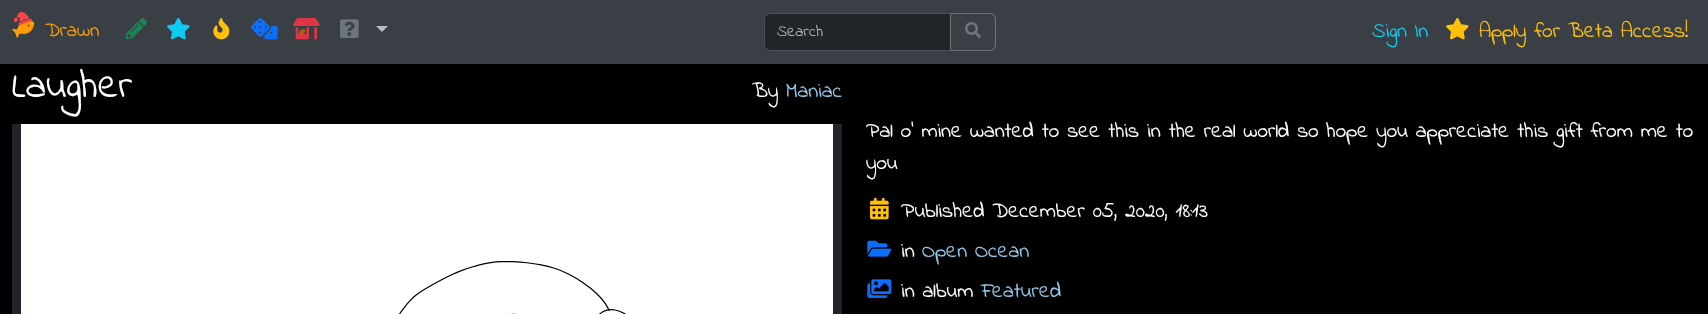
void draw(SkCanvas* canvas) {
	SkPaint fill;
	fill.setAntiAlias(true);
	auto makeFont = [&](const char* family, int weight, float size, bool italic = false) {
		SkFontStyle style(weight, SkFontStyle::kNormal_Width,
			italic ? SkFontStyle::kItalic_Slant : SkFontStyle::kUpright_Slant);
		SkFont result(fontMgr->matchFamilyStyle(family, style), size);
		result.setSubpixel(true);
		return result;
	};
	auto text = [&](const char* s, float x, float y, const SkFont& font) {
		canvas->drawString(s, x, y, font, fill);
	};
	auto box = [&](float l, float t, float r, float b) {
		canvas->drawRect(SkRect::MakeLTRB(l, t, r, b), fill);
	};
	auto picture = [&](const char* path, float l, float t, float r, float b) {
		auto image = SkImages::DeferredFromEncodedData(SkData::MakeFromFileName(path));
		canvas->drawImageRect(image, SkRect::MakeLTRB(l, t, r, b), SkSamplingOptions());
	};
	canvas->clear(0xFF000000);
	fill.setColor(0xFF393F45);
	box(0, 0, 1708, 64);
	picture("image1.png", 12, 20, 35, 38);
	picture("image0.png", 13, 11, 32, 26);
	picture("image2.png", 125, 18, 147, 40);
	picture("image3.png", 167, 18, 190, 40);
	picture("image4.png", 213, 18, 230, 40);
	picture("image5.png", 251, 18, 278, 40);
	picture("image7.png", 299, 29, 306, 34);
	picture("image6.png", 293, 18, 320, 40);
	picture("image8.png", 340, 19, 359, 38);
	fill.setColor(0xFFBABCBE);
	canvas->drawPath(SkPathBuilder().moveTo(376, 26).lineTo(388, 26).lineTo(382, 32).close().detach(), fill);
	fill.setColor(0xFF212529);
	canvas->drawPath(SkPathBuilder().moveTo(770, 13.5f).lineTo(950.5f, 13.5f).lineTo(950.5f, 50.5f).lineTo(770, 50.5f).cubicTo(767, 50.5f, 764.5f, 48, 764.5f, 45).lineTo(764.5f, 19).cubicTo(764.5f, 16, 767, 13.5f, 770, 13.5f).close().detach(), fill);
	fill.setStyle(SkPaint::kStroke_Style);
	fill.setStrokeWidth(1);
	fill.setColor(0xFF495057);
	canvas->drawPath(SkPathBuilder().moveTo(770, 13.5f).lineTo(950.5f, 13.5f).lineTo(950.5f, 50.5f).lineTo(770, 50.5f).cubicTo(767, 50.5f, 764.5f, 48, 764.5f, 45).lineTo(764.5f, 19).cubicTo(764.5f, 16, 767, 13.5f, 770, 13.5f).close().detach(), fill);
	fill.setColor(0xFF6C757D);
	canvas->drawPath(SkPathBuilder().moveTo(950.5f, 13.5f).lineTo(990, 13.5f).cubicTo(993, 13.5f, 995.5f, 16, 995.5f, 19).lineTo(995.5f, 45).cubicTo(995.5f, 48, 993, 50.5f, 990, 50.5f).lineTo(950.5f, 50.5f).close().detach(), fill);
	picture("image9.png", 965, 22, 981, 38);
	picture("image10.png", 1446, 18, 1469, 40);
	picture("image11.png", 12, 124, 842, 314);
	picture("image12.png", 870, 198, 889, 220);
	picture("image13.png", 867, 240, 892, 257);
	picture("image14.png", 867, 279, 892, 298);
	auto font1 = makeFont("Indie Flower", 400, 20);
	fill.setStyle(SkPaint::kFill_Style);
	fill.setColor(0xFFFF9D03);
	text("Drawn", 45, 36, font1);
	auto font2 = makeFont("Indie Flower", 400, 16);
	fill.setColor(0xFFAFB3B7);
	text("Search", 777, 36, font2);
	auto font3 = makeFont("Indie Flower", 400, 21.35f);
	fill.setColor(0xFF0DCAF0);
	text("Sign In", 1372, 37, font3);
	fill.setColor(0xFFFFC107);
	text("Apply for Beta Access!", 1479, 37, font3);
	auto font4 = makeFont("Indie Flower", 400, 40);
	fill.setColor(0xFFFFFFFF);
	text("Laugher", 12, 97, font4);
	text("By", 752, 97, font3);
	fill.setColor(0xFF92C8EC);
	text("Maniac", 786, 97, font3);
	fill.setColor(0xFFFFFFFF);
	text("Pal o' mine wanted to see this in the real world so hope you appreciate this gift from me to", 866, 137, font3);
	text("you", 866, 169, font3);
	text("Published December 05, 2020, 18:13", 901, 217, font3);
	text("in", 901, 257, font3);
	fill.setColor(0xFF92C8EC);
	text("Open Ocean", 922, 257, font3);
	fill.setColor(0xFFFFFFFF);
	text("in album", 901, 297, font3);
	fill.setColor(0xFF92C8EC);
	text("Featured", 981, 297, font3);
}
